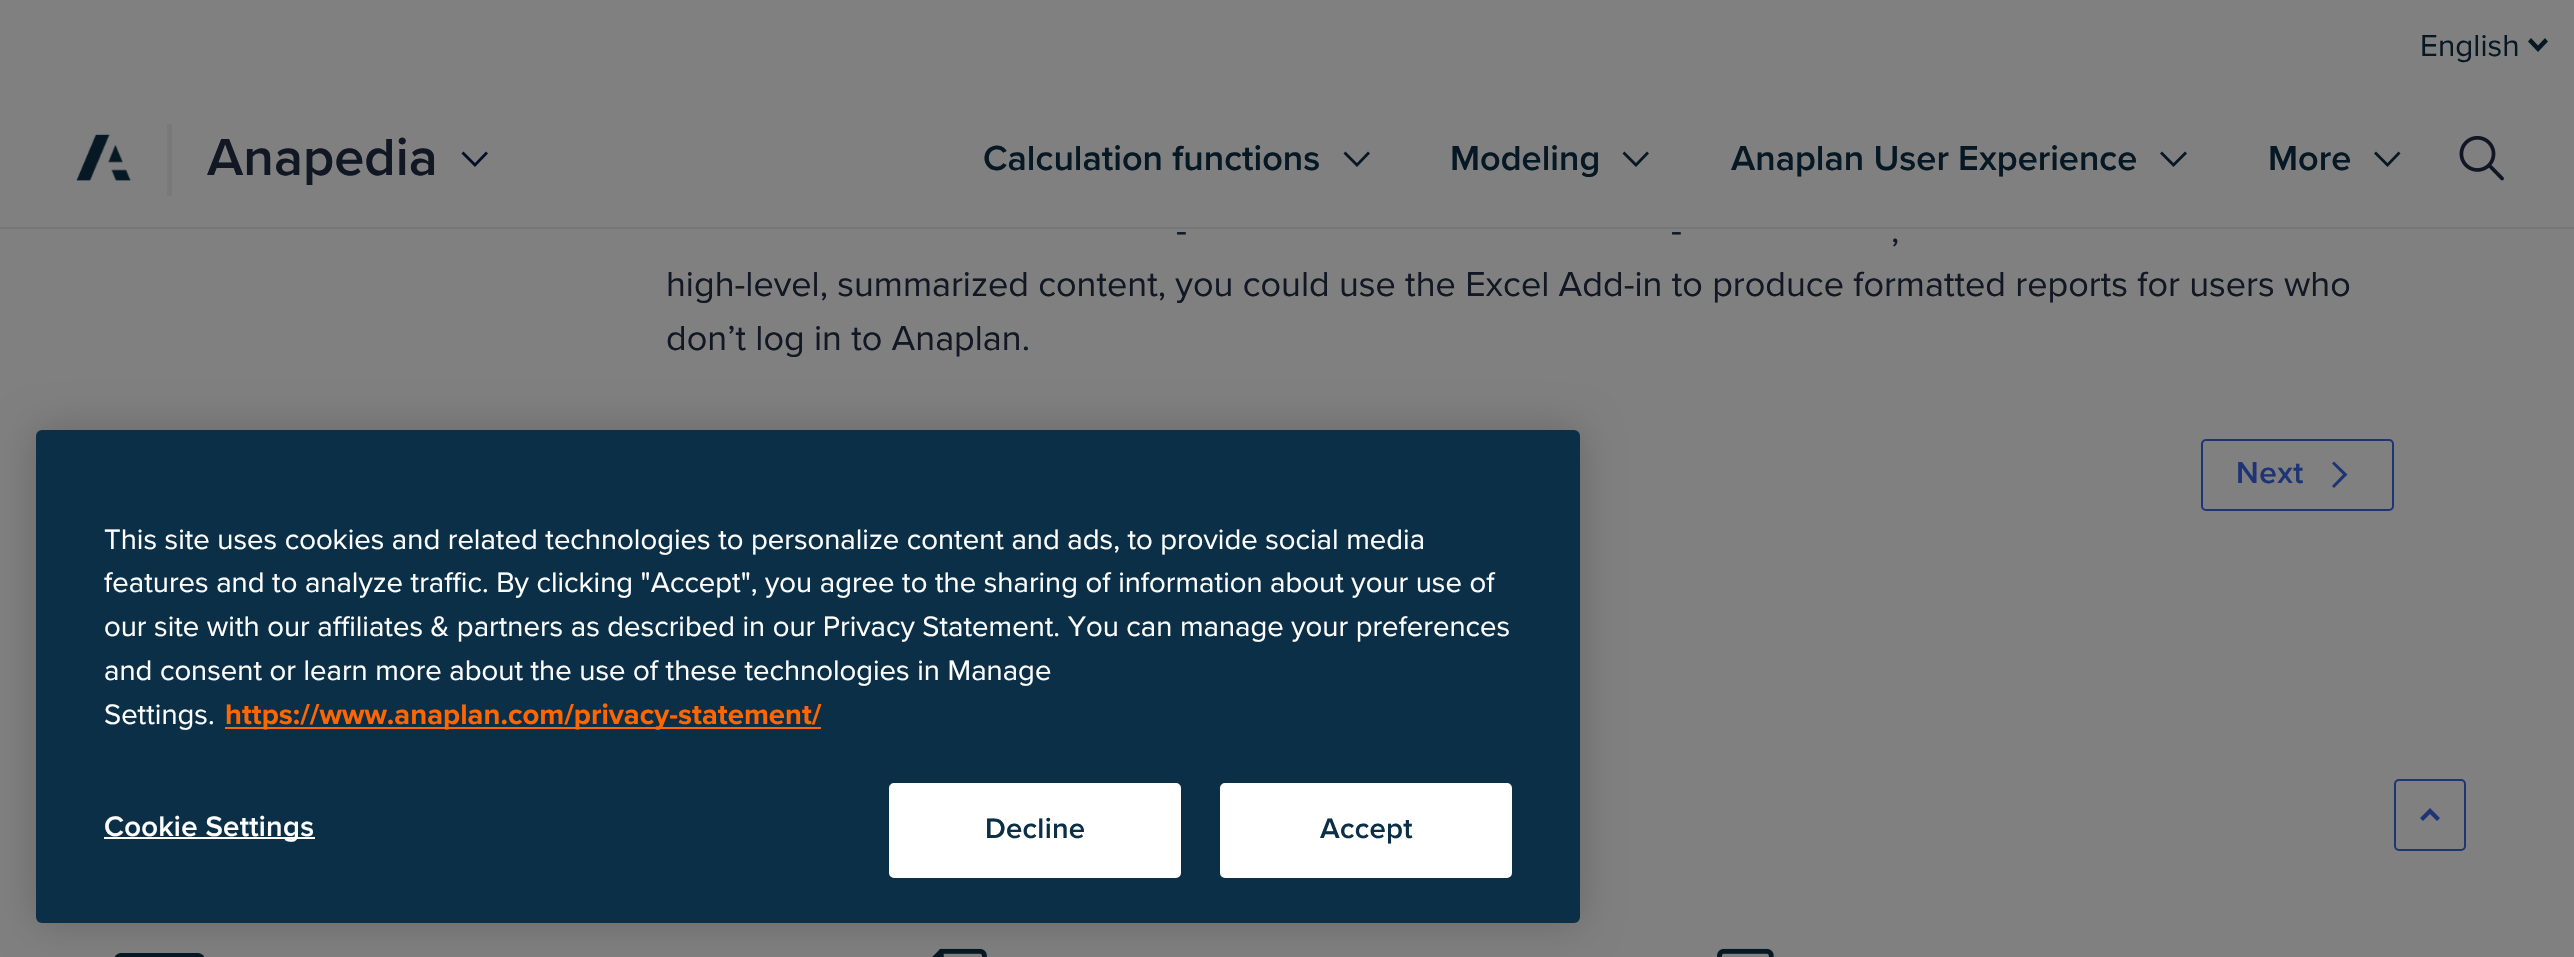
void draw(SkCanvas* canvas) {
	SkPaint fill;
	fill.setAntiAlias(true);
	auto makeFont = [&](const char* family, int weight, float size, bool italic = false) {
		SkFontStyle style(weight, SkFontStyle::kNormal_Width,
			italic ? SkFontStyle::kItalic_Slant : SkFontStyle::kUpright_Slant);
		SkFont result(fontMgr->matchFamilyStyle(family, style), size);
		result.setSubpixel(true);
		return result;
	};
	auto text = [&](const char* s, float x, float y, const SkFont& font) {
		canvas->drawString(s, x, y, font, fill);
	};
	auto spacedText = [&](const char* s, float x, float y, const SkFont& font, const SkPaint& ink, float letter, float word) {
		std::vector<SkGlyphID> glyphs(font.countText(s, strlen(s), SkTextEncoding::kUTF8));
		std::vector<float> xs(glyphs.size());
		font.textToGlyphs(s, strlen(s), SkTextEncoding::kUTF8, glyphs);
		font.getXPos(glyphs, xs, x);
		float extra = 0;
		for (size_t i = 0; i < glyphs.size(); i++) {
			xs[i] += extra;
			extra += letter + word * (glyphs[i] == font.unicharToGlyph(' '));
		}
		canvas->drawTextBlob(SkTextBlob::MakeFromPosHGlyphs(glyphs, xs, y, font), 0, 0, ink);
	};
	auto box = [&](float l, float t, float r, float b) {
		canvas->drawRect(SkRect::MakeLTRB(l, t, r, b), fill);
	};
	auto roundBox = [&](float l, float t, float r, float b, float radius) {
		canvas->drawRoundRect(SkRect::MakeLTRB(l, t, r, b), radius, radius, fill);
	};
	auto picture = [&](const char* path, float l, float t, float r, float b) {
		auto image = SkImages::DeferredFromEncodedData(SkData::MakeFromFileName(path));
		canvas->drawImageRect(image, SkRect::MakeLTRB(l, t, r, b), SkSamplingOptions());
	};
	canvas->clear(0xFF808080);
	fill.setColor(0xFF051823);
	canvas->drawPath(SkPathBuilder(SkPathFillType::kEvenOdd).moveTo(2545, 38).lineTo(2548, 41.5f).lineTo(2538, 52).lineTo(2528, 41.5f).lineTo(2531, 38).lineTo(2538, 45.5f).close().detach(), fill);
	fill.setColor(0xFF73767C);
	box(0, 227, 2574, 229);
	picture("image0.png", 76, 134, 131, 181);
	fill.setColor(0xFF797977);
	box(167, 124, 172, 196);
	fill.setColor(0xFF040E2A);
	canvas->drawPath(SkPathBuilder().moveTo(475, 163).lineTo(486, 151.5f).lineTo(488, 153.5f).lineTo(475, 167).lineTo(461.5f, 153.5f).lineTo(463.5f, 151.5f).close().detach(), fill);
	fill.setColor(0xFF051823);
	canvas->drawPath(SkPathBuilder().moveTo(1357, 163).lineTo(1368, 151.5f).lineTo(1370, 153.5f).lineTo(1357, 167).lineTo(1343.5f, 153.5f).lineTo(1345.5f, 151.5f).close().detach(), fill);
	canvas->drawPath(SkPathBuilder().moveTo(1636, 163).lineTo(1647, 151.5f).lineTo(1649, 153.5f).lineTo(1636, 167).lineTo(1622.5f, 153.5f).lineTo(1624.5f, 151.5f).close().detach(), fill);
	canvas->drawPath(SkPathBuilder().moveTo(2173.5f, 163).lineTo(2185, 151.5f).lineTo(2187, 153.5f).lineTo(2173.5f, 167).lineTo(2160, 153.5f).lineTo(2162, 151.5f).close().detach(), fill);
	canvas->drawPath(SkPathBuilder().moveTo(2387.5f, 163).lineTo(2398.5f, 151.5f).lineTo(2400.5f, 153.5f).lineTo(2387.5f, 167).lineTo(2374, 153.5f).lineTo(2376, 151.5f).close().detach(), fill);
	picture("image1.png", 2459, 135, 2504, 181);
	fill.setStyle(SkPaint::kStroke_Style);
	fill.setStrokeWidth(2);
	fill.setColor(0xFF1E3475);
	canvas->drawRoundRect(SkRect::MakeLTRB(2202, 440, 2393, 510), 4, 4, fill);
	fill.setStyle(SkPaint::kFill_Style);
	canvas->drawPath(SkPathBuilder().moveTo(2343, 474.5f).lineTo(2332, 463.5f).lineTo(2334, 461.5f).lineTo(2347.5f, 474.5f).lineTo(2334, 488).lineTo(2332, 486).close().detach(), fill);
	fill.setStyle(SkPaint::kStroke_Style);
	canvas->drawRoundRect(SkRect::MakeLTRB(2395, 780, 2465, 850), 4, 4, fill);
	fill.setStyle(SkPaint::kFill_Style);
	canvas->drawPath(SkPathBuilder(SkPathFillType::kEvenOdd).moveTo(2423, 821).lineTo(2420, 818).lineTo(2430, 808).lineTo(2440, 818).lineTo(2437, 821).lineTo(2430, 814).close().detach(), fill);
	fill.setStyle(SkPaint::kStroke_Style);
	fill.setStrokeWidth(5);
	fill.setColor(0xFF051823);
	canvas->drawRoundRect(SkRect::MakeLTRB(116.5f, 955.5f, 202.5f, 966.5f), 4.5f, 4.5f, fill);
	picture("image2.png", 932, 948, 987, 957);
	picture("image3.png", 1717, 948, 1774, 957);
	fill.setStyle(SkPaint::kFill_Style);
	fill.setColor(0x33000000);
	fill.setMaskFilter(SkMaskFilter::MakeBlur(kNormal_SkBlurStyle, 20));
	canvas->drawRoundRect(SkRect::MakeLTRB(36, 430, 1580, 923), 6, 6, fill);
	fill.setMaskFilter(nullptr);
	fill.setColor(0xFF0A2F46);
	roundBox(36, 430, 1580, 923, 6);
	fill.setColor(0xFFFF6600);
	box(225, 727, 821, 729);
	fill.setColor(0xFFFFFFFF);
	box(104, 837, 315, 839);
	canvas->drawRoundRect(SkRect::MakeLTRB(890, 784, 1180, 877), 4, 4, fill);
	fill.setStyle(SkPaint::kStroke_Style);
	fill.setStrokeWidth(2);
	canvas->drawRoundRect(SkRect::MakeLTRB(890, 784, 1180, 877), 4, 4, fill);
	fill.setStyle(SkPaint::kFill_Style);
	canvas->drawRoundRect(SkRect::MakeLTRB(1221, 784, 1511, 877), 4, 4, fill);
	fill.setStyle(SkPaint::kStroke_Style);
	canvas->drawRoundRect(SkRect::MakeLTRB(1221, 784, 1511, 877), 4, 4, fill);
	auto font1 = makeFont("Proxima Nova", 400, 31.5f);
	fill.setStyle(SkPaint::kFill_Style);
	fill.setColor(0xFF051823);
	text("English", 2420, 56, font1);
	auto font2 = makeFont("Proxima Nova", 600, 54);
	fill.setColor(0xFF121724);
	text("Anapedia", 207, 175, font2);
	auto font3 = makeFont("Proxima Nova", 600, 36);
	fill.setColor(0xFF051823);
	text("Calculation functions", 983, 170, font3);
	text("Modeling", 1450, 170, font3);
	text("Anaplan User Experience", 1731, 170, font3);
	text("More", 2268, 170, font3);
	auto font4 = makeFont("Proxima Nova", 400, 36);
	fill.setColor(0xFF121724);
	text("-", 1176, 242, font4);
	text("-", 1671, 242, font4);
	text(",", 1891, 242, font4);
	text("high-level, summarized content, you could use the Excel Add-in to produce formatted reports for users who", 666, 296, font4);
	text("don’t log in to Anaplan.", 666, 350, font4);
	auto font5 = makeFont("Proxima Nova", 600, 31.5f);
	fill.setColor(0xFF1E3475);
	spacedText("Next", 2236, 483, font5, fill, 0.5f, 0);
	auto font6 = makeFont("Proxima Nova", 400, 29.25f);
	fill.setColor(0xFFFFFFFF);
	text("This site uses cookies and related technologies to personalize content and ads, to provide social media", 104, 549, font6);
	text("features and to analyze traffic. By clicking \"Accept\", you agree to the sharing of information about your use of", 104, 592, font6);
	text("our site with our affiliates & partners as described in our Privacy Statement. You can manage your preferences", 104, 636, font6);
	text("and consent or learn more about the use of these technologies in Manage", 104, 680, font6);
	text("Settings.", 104, 724, font6);
	auto font7 = makeFont("Proxima Nova", 700, 29.25f);
	fill.setColor(0xFFFF6600);
	text("https://www.anaplan.com/privacy-statement/", 225, 724, font7);
	auto font8 = makeFont("Proxima Nova", 600, 29.25f);
	fill.setColor(0xFFFFFFFF);
	spacedText("Cookie Settings", 104, 836, font8, fill, 0.25f, 0);
	fill.setColor(0xFF0A2F46);
	spacedText("Decline", 985, 838, font8, fill, 0.25f, 0);
	spacedText("Accept", 1320, 838, font8, fill, 0.25f, 0);
}
